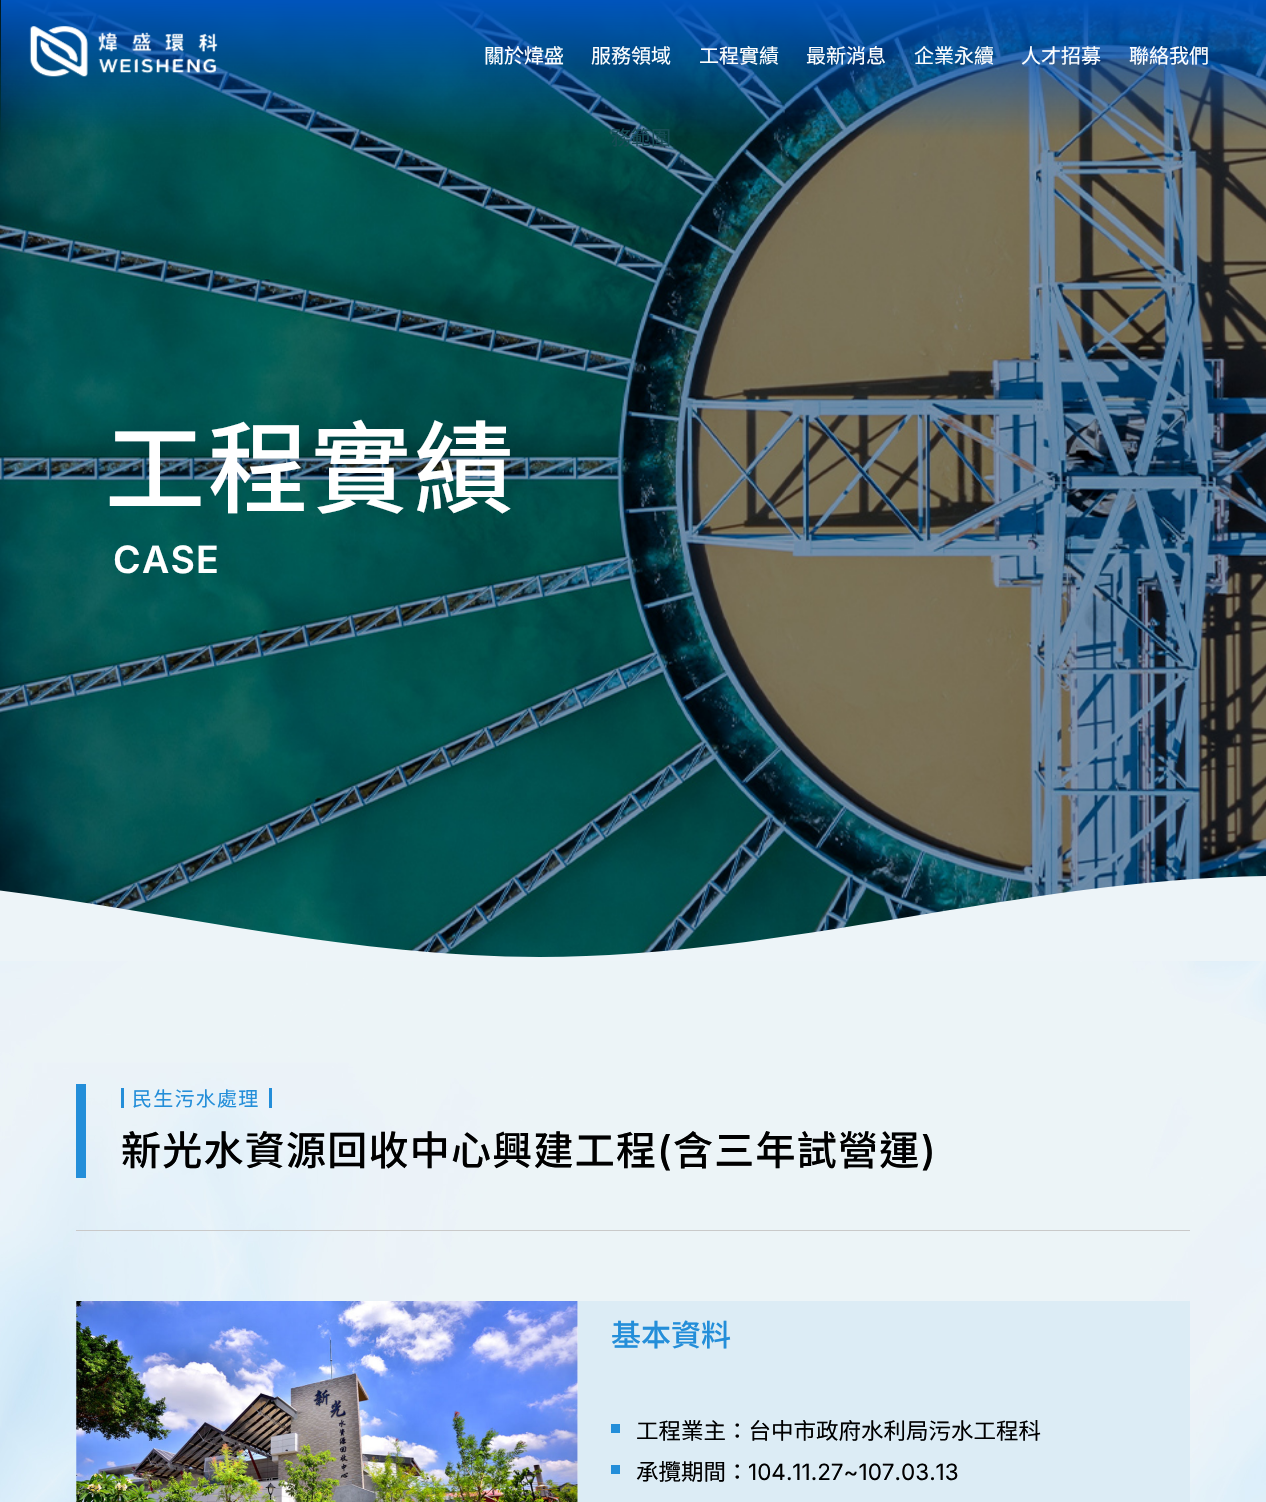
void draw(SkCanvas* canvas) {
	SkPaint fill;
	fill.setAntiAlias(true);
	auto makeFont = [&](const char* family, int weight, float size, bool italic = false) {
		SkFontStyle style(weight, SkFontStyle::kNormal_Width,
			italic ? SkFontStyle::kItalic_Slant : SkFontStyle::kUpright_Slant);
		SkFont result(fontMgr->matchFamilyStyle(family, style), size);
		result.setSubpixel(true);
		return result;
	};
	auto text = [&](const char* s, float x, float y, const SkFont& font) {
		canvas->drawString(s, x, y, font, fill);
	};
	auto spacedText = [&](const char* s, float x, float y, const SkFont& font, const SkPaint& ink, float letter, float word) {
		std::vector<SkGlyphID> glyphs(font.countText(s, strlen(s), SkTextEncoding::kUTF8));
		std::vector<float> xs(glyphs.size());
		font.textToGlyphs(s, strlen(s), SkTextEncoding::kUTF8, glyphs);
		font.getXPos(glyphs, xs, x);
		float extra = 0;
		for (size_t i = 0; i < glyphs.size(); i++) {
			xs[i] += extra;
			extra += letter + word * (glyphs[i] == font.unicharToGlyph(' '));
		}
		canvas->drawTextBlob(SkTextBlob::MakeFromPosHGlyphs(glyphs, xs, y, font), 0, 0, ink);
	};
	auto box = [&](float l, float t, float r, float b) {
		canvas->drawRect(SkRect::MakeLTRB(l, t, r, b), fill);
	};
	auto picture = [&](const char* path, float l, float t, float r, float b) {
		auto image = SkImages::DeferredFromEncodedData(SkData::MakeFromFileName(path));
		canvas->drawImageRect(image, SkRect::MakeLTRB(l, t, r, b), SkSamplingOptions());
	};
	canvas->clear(0xFFFFFFFF);
	picture("image2.png", 0, 0, 1266, 957);
	picture("image0.png", 29, 26, 218, 77);
	picture("image1.png", 0, 961, 1266, 1502);
	canvas->save();
	canvas->clipRect(SkRect::MakeLTRB(0, 836, 1266, 961));
	fill.setColor(0xFFEDF4F8);
	canvas->drawPath(SkPathBuilder().moveTo(-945, 957).cubicTo(-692, 957, -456, 876, -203, 876).cubicTo(51, 876, 287, 957, 540, 957).cubicTo(794, 957, 1030, 876, 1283, 876).cubicTo(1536, 876, 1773, 957, 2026, 957).lineTo(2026, 1153).lineTo(-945, 1153).close().detach(), fill);
	canvas->restore();
	fill.setColor(0xFF238ED9);
	box(76, 1084, 86, 1178);
	box(121, 1088, 124, 1108);
	box(269, 1088, 272, 1108);
	fill.setColor(0xFFC9C9C9);
	box(76, 1230, 1190, 1231);
	picture("image3.png", 76, 1301, 578, 1502);
	fill.setColor(0xFFDCECF5);
	box(578, 1301, 1190, 1502);
	fill.setColor(0xFF238ED9);
	box(611, 1424, 620, 1433);
	box(611, 1465, 620, 1474);
	auto font1 = makeFont("Noto Sans TC", 400, 20);
	fill.setColor(0xFFFFFFFF);
	text("關於煒盛", 484, 63, font1);
	text("服務領域", 591, 63, font1);
	fill.setColor(0xFF174B55);
	text("務範圍", 611, 145, font1);
	fill.setColor(0xFFFFFFFF);
	text("工程實績", 699, 63, font1);
	text("最新消息", 806, 63, font1);
	text("企業永續", 914, 63, font1);
	text("人才招募", 1021, 63, font1);
	text("聯絡我們", 1129, 63, font1);
	auto font2 = makeFont("Noto Sans TC", 500, 100);
	spacedText("工程實績", 105, 505, font2, fill, 3, 0);
	auto font3 = makeFont("Inter", 600, 37.5f);
	spacedText("CASE", 113, 573, font3, fill, 1.25f, 0);
	fill.setColor(0xFF238ED9);
	spacedText("民生污水處理", 132, 1106, font1, fill, 1.25f, 0);
	auto font4 = makeFont("Noto Sans TC", 500, 40);
	fill.setColor(0xFF000000);
	spacedText("新光水資源回收中心興建工程", 121, 1165, font4, fill, 1.25f, 0);
	auto font5 = makeFont("Inter", 500, 40);
	spacedText("(", 657, 1165, font5, fill, 1.25f, 0);
	spacedText("含三年試營運", 673, 1165, font4, fill, 1.25f, 0);
	spacedText(")", 921, 1165, font5, fill, 1.25f, 0);
	auto font6 = makeFont("Noto Sans TC", 500, 30);
	fill.setColor(0xFF238ED9);
	text("基本資料", 611, 1346, font6);
	auto font7 = makeFont("Noto Sans TC", 400, 22.5f);
	fill.setColor(0xFF000000);
	text("工程業主：台中市政府水利局污水工程科", 636, 1439, font7);
	text("承攬期間：", 636, 1480, font7);
	auto font8 = makeFont("Inter", 400, 22.5f);
	text("104.11.27~107.03.13", 748, 1480, font8);
}
